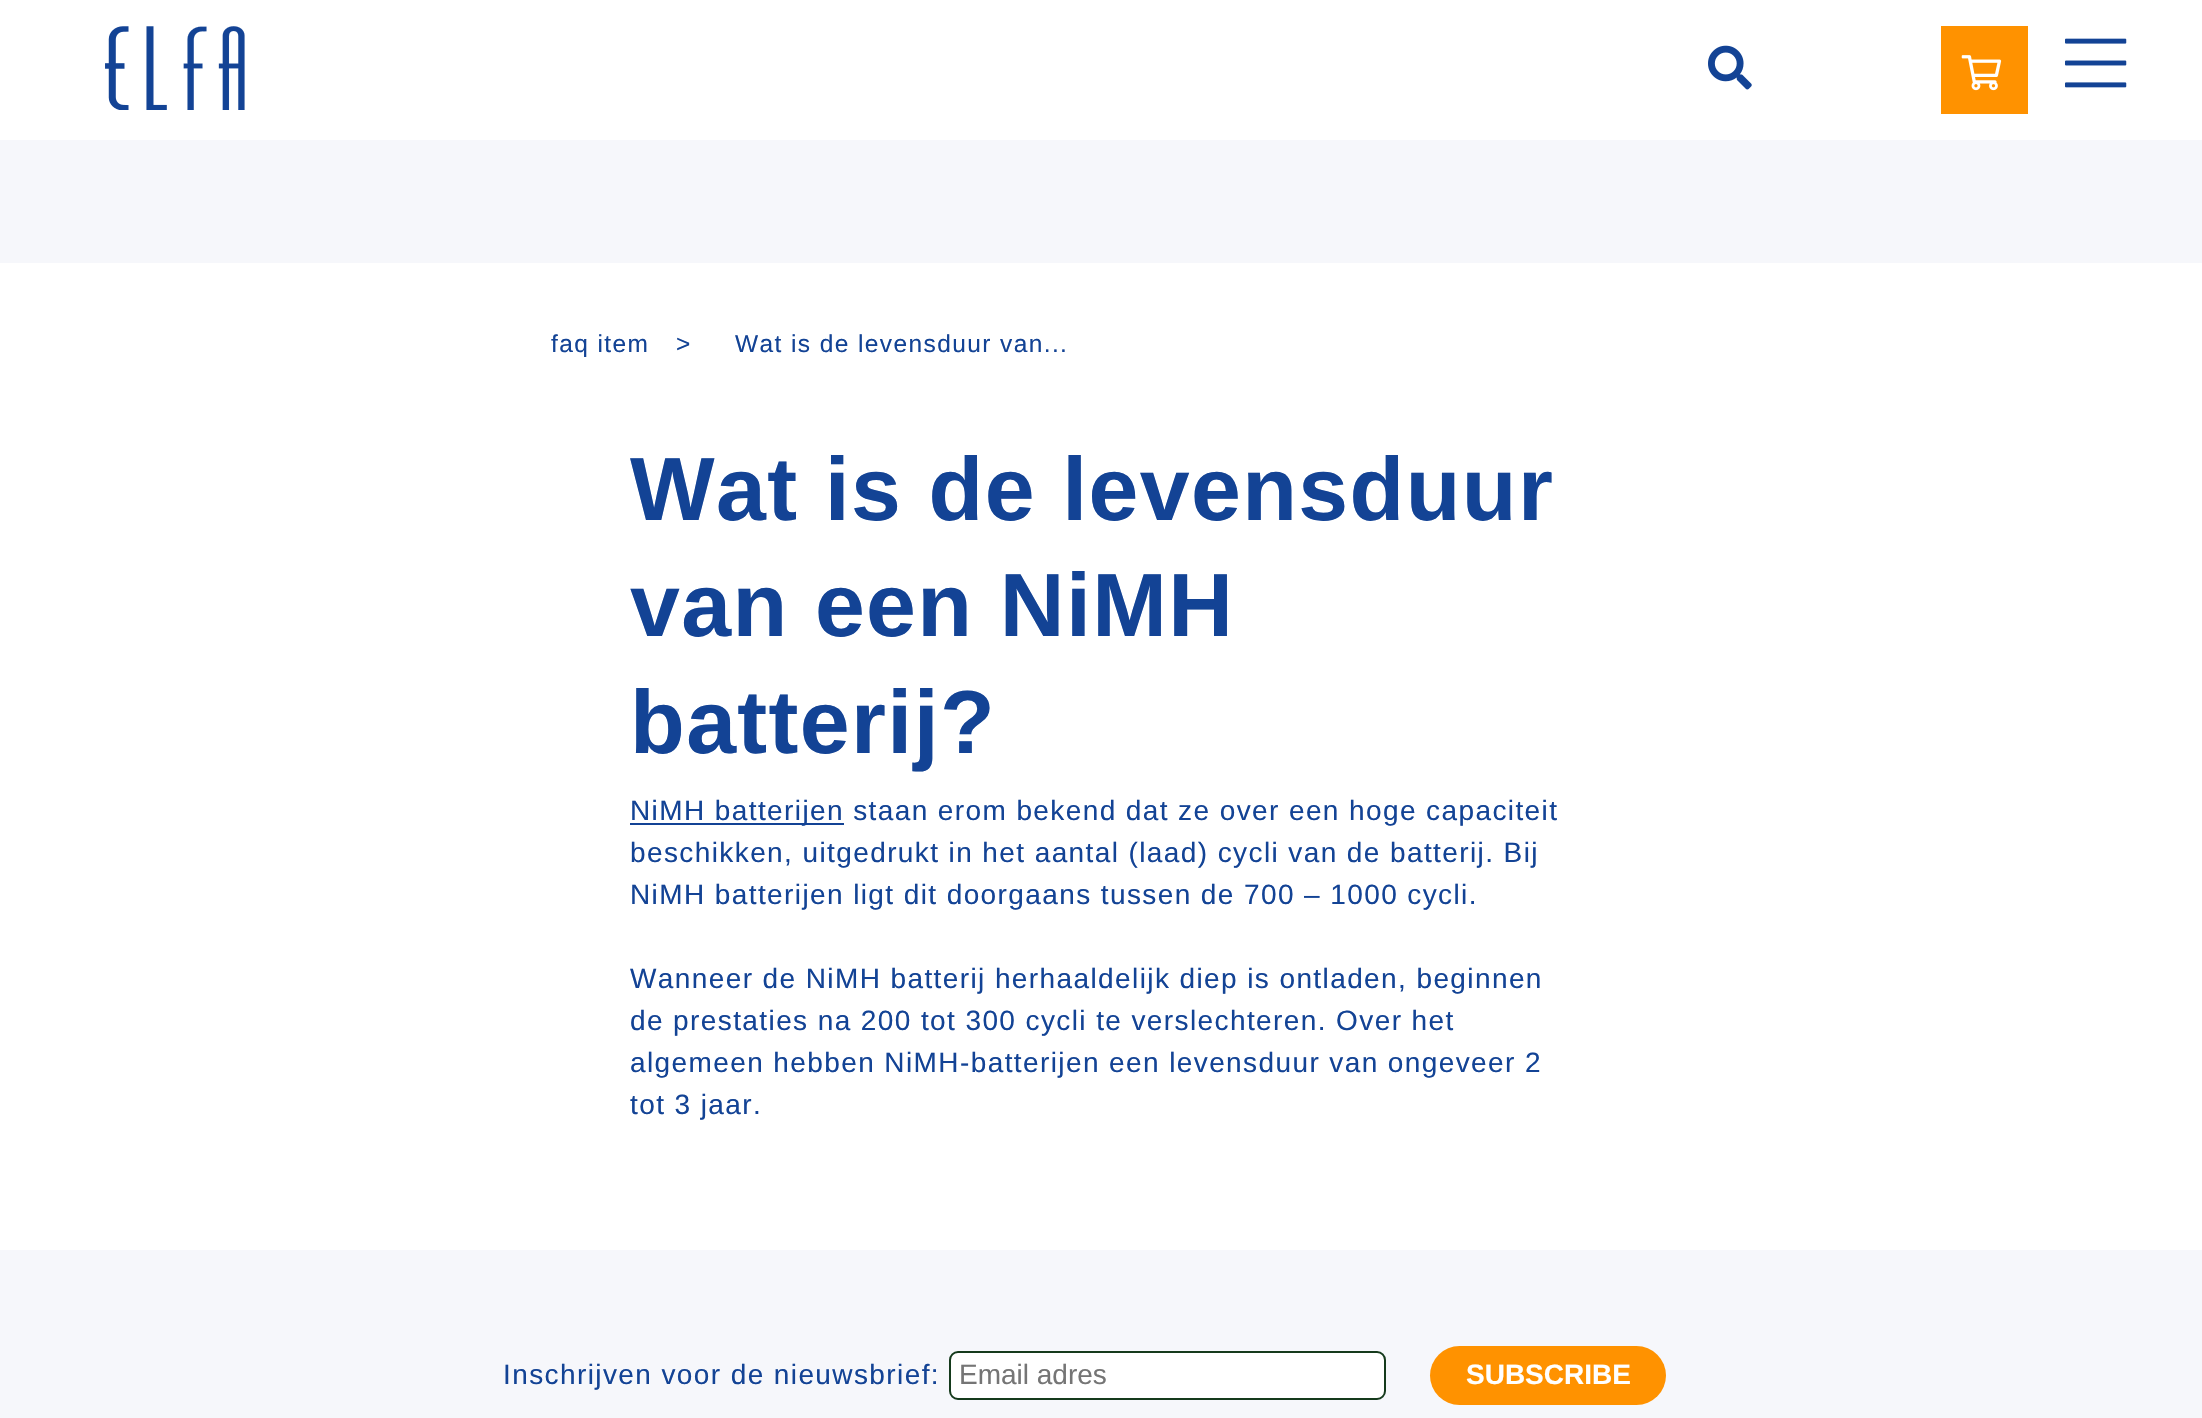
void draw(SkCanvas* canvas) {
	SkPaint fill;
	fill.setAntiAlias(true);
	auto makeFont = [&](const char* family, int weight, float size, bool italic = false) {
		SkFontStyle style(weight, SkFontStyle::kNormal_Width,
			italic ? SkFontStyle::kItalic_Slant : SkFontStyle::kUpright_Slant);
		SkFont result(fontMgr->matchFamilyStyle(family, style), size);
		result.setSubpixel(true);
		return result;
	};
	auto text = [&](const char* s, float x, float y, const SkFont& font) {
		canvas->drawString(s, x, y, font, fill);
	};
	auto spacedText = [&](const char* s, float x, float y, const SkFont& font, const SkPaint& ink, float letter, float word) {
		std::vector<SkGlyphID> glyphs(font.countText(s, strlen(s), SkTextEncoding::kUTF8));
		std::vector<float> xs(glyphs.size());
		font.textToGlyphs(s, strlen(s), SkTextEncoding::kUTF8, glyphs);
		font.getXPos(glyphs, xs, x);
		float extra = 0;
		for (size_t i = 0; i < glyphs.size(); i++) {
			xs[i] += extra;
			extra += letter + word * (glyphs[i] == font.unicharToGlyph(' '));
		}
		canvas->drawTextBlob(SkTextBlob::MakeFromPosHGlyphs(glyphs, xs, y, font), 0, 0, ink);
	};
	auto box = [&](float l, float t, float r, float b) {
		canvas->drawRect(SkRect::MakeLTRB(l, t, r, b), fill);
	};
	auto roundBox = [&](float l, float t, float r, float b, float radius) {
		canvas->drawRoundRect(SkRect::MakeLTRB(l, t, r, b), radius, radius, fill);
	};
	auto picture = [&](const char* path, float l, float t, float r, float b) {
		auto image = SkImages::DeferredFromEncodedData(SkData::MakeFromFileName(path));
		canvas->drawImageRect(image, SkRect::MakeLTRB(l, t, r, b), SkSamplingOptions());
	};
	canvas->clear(0xFFFFFFFF);
	picture("image0.png", 105, 26, 245, 110);
	picture("image1.png", 1708, 45, 1752, 90);
	fill.setColor(0xFFFF9200);
	box(1941, 26, 2028, 114);
	picture("image2.png", 1961, 55, 2002, 91);
	picture("image3.png", 2065, 38, 2127, 88);
	fill.setColor(0xFFF6F7FB);
	box(0, 140, 2202, 263);
	fill.setColor(0xFF134395);
	box(630, 823, 844, 825);
	fill.setColor(0xFFF6F7FB);
	box(0, 1250, 2202, 1418);
	fill.setColor(0xFFFFFFFF);
	canvas->drawRoundRect(SkRect::MakeLTRB(950, 1352, 1385, 1399), 8, 8, fill);
	fill.setStyle(SkPaint::kStroke_Style);
	fill.setStrokeWidth(2);
	fill.setColor(0xFF153A1C);
	canvas->drawRoundRect(SkRect::MakeLTRB(950, 1352, 1385, 1399), 8, 8, fill);
	fill.setStyle(SkPaint::kFill_Style);
	fill.setColor(0xFFFF9200);
	roundBox(1430, 1346, 1666, 1405, 29.5f);
	auto font1 = makeFont("Liberation Sans", 400, 24.5f);
	fill.setColor(0xFF134395);
	spacedText("faq item", 551, 352, font1, fill, 1.4f, 0);
	spacedText(">", 676, 352, font1, fill, 1.4f, 0);
	spacedText("Wat is de levensduur van...", 735, 352, font1, fill, 1.4f, 0);
	auto font2 = makeFont("Liberation Sans", 700, 89.6f);
	spacedText("Wat is de levensduur", 630, 520, font2, fill, 1.4f, 0);
	spacedText("van een NiMH", 630, 636, font2, fill, 1.4f, 0);
	spacedText("batterij?", 630, 753, font2, fill, 1.4f, 0);
	auto font3 = makeFont("Liberation Sans", 400, 28);
	spacedText("NiMH batterijen staan erom bekend dat ze over een hoge capaciteit", 630, 820, font3, fill, 1.4f, 0);
	spacedText("beschikken, uitgedrukt in het aantal (laad) cycli van de batterij. Bij", 630, 862, font3, fill, 1.4f, 0);
	spacedText("NiMH batterijen ligt dit doorgaans tussen de 700 – 1000 cycli.", 630, 904, font3, fill, 1.4f, 0);
	spacedText("Wanneer de NiMH batterij herhaaldelijk diep is ontladen, beginnen", 630, 988, font3, fill, 1.4f, 0);
	spacedText("de prestaties na 200 tot 300 cycli te verslechteren. Over het", 630, 1030, font3, fill, 1.4f, 0);
	spacedText("algemeen hebben NiMH-batterijen een levensduur van ongeveer 2", 630, 1072, font3, fill, 1.4f, 0);
	spacedText("tot 3 jaar.", 630, 1114, font3, fill, 1.4f, 0);
	spacedText("Inschrijven voor de nieuwsbrief:", 503, 1384, font3, fill, 1.4f, 0);
	fill.setColor(0xFF757575);
	text("Email adres", 959, 1384, font3);
	auto font4 = makeFont("Liberation Sans", 700, 28);
	fill.setColor(0xFFFFFFFF);
	text("SUBSCRIBE", 1466, 1384, font4);
}
